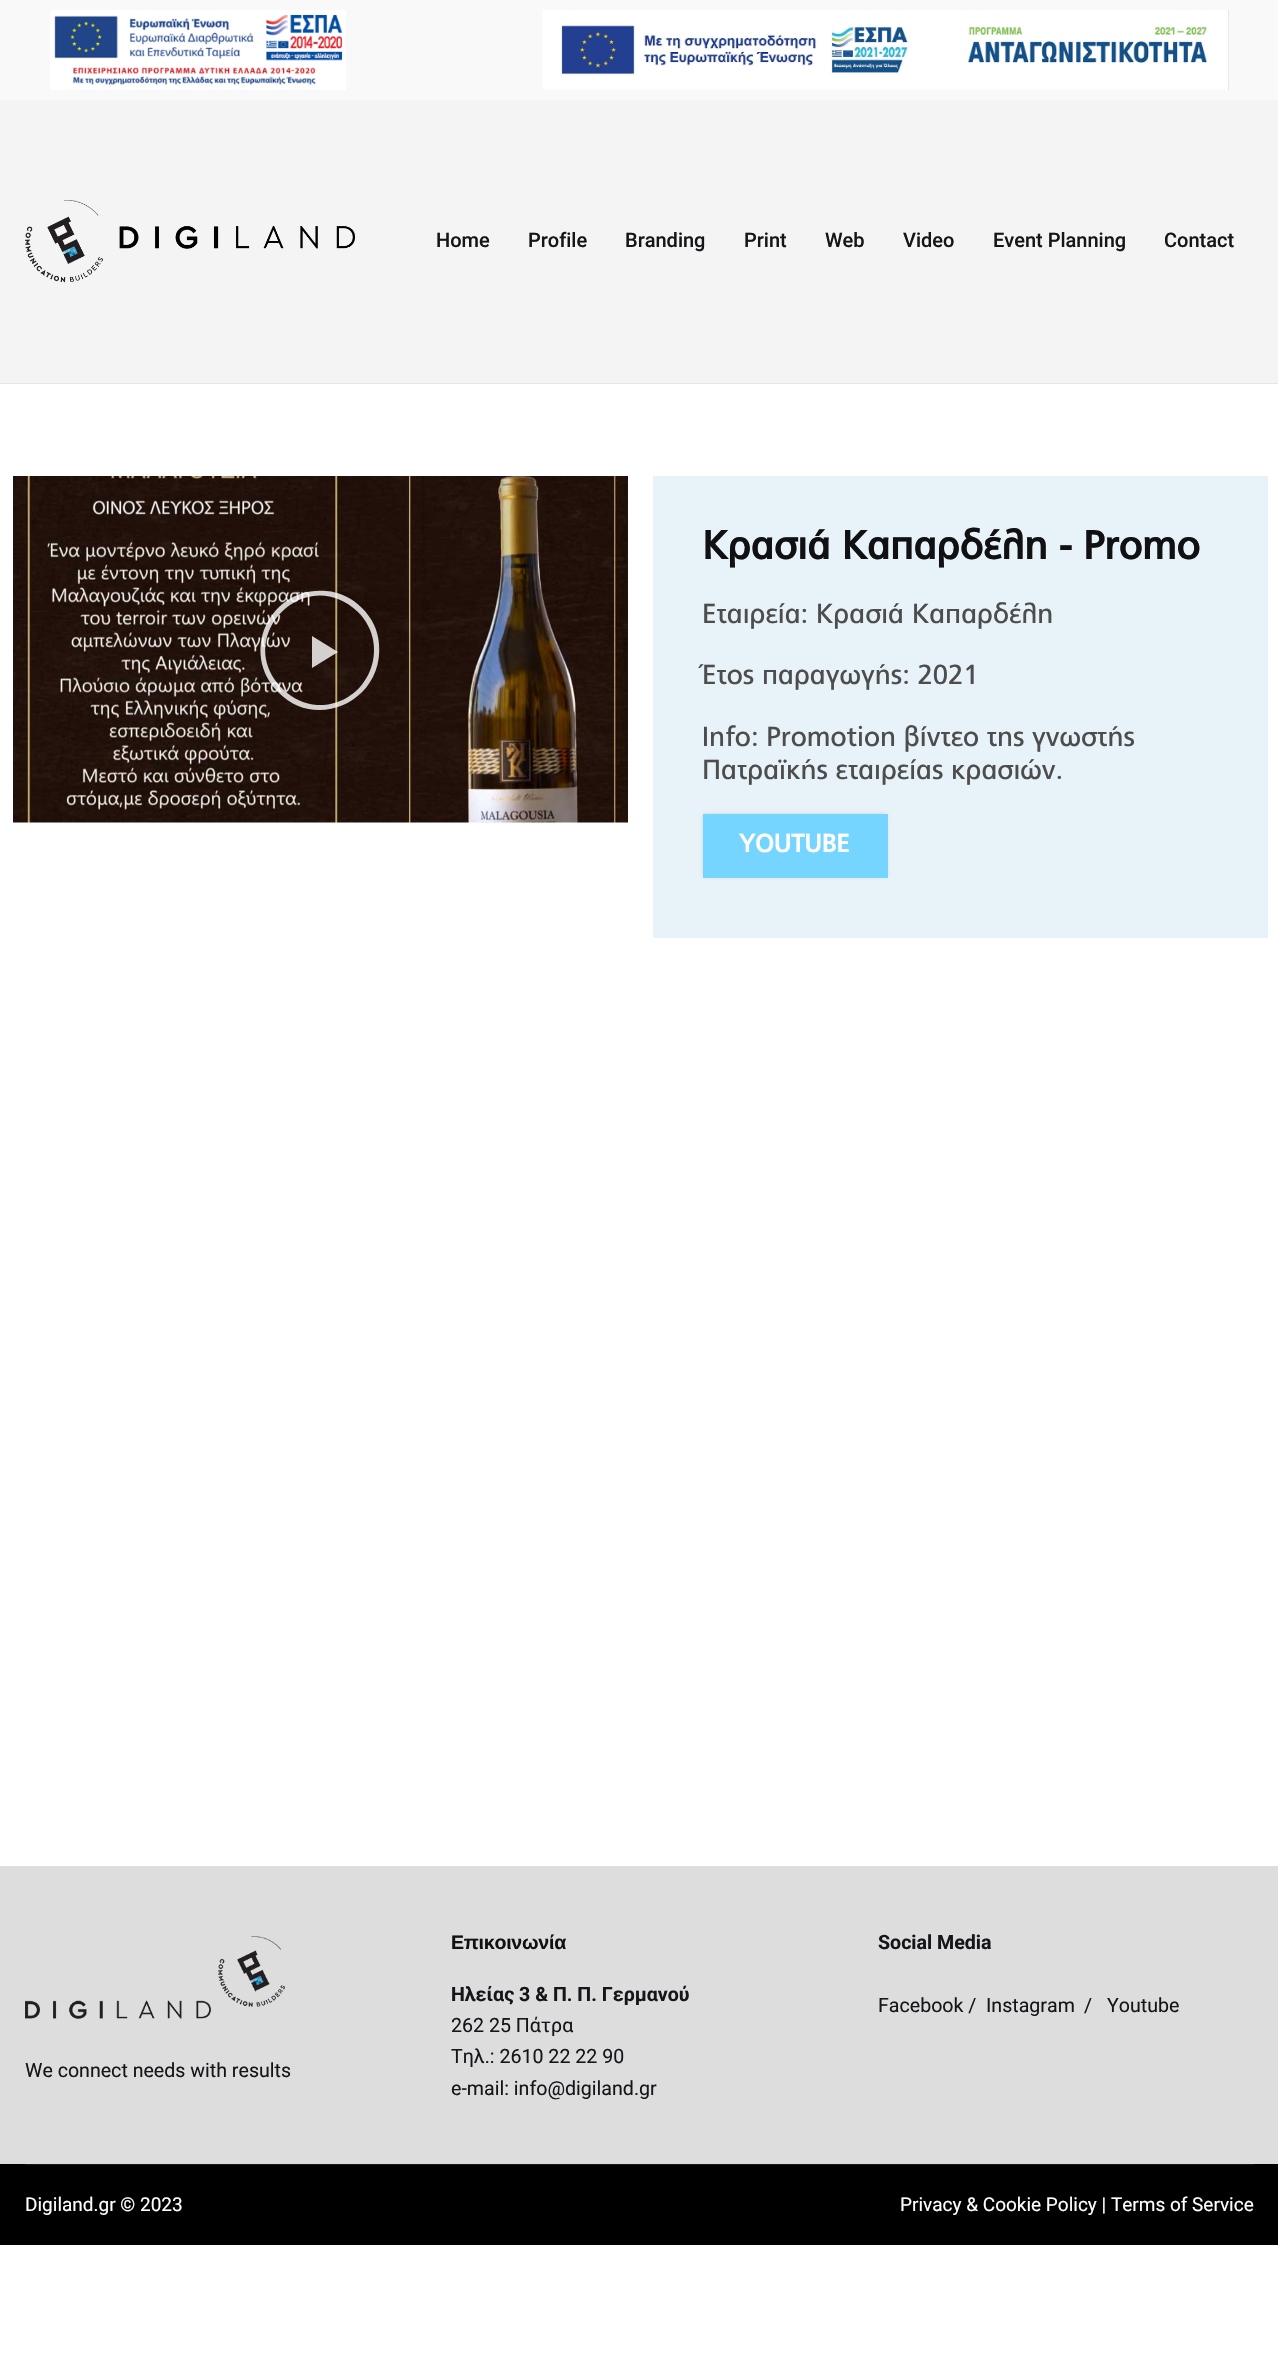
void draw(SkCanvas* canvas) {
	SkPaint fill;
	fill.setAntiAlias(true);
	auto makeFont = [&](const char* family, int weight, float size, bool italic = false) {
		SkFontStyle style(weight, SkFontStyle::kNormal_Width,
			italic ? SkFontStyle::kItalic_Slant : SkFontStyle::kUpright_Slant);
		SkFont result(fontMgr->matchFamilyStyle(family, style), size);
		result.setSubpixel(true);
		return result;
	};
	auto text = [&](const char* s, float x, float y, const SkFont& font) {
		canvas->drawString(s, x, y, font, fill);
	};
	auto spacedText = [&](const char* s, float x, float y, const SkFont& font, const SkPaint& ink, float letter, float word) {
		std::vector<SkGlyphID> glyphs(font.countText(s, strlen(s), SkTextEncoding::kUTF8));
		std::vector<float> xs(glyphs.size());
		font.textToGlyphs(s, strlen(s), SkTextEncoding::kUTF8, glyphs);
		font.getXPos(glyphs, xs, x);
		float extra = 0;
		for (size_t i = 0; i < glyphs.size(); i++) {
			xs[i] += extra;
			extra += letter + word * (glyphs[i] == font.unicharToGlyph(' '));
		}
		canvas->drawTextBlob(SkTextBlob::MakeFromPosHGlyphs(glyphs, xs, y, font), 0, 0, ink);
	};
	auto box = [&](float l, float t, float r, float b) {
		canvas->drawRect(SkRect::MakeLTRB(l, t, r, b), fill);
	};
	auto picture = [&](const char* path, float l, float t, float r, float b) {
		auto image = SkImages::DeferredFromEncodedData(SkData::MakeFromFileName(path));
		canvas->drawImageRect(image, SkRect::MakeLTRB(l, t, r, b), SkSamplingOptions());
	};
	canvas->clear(0xFFFFFFFF);
	fill.setColor(0xFFF9F9FA);
	box(0, 0, 1278, 100);
	picture("image0.png", 50, 10, 346, 90);
	picture("image1.png", 542, 10, 1229, 90);
	fill.setColor(0xFFF4F4F4);
	box(0, 100, 1278, 383);
	fill.setColor(0xFFE6E5E8);
	box(0, 383, 1278, 384);
	picture("image2.png", 25, 200, 355, 283);
	picture("image3.png", 13, 476, 628, 823);
	fill.setColor(0xCCFFFFFF);
	canvas->drawPath(SkPathBuilder().moveTo(362, 608).cubicTo(352, 598, 340, 592, 326, 591).cubicTo(270, 586, 239, 652, 278, 692).cubicTo(316, 732, 384, 701, 379, 644).cubicTo(378, 630, 372, 618, 362, 608).close().moveTo(358, 612).cubicTo(393, 647, 367, 707, 317, 705).cubicTo(305, 704, 293, 699, 284, 690).cubicTo(230, 639, 305, 561, 358, 612).close().moveTo(312, 636).lineTo(312, 668).lineTo(338, 652).close().detach(), fill);
	fill.setColor(0xFFE7F2F9);
	box(653, 476, 1268, 938);
	fill.setColor(0x33000000);
	fill.setMaskFilter(SkMaskFilter::MakeBlur(kNormal_SkBlurStyle, 2));
	canvas->drawRect(SkRect::MakeLTRB(704, 815, 886, 876), fill);
	fill.setMaskFilter(nullptr);
	fill.setColor(0xFF75D5FF);
	box(703, 814, 888, 878);
	fill.setColor(0xFFDDDDDD);
	box(0, 1866, 1278, 2164);
	picture("image4.png", 25, 1936, 285, 2019);
	fill.setColor(0xFF000000);
	box(0, 2164, 1278, 2245);
	fill.setColor(0xFF171618);
	box(25, 2164, 1254, 2165);
	auto font1 = makeFont("Roboto", 500, 20);
	fill.setColor(0xFF161519);
	text("Home", 436, 247, font1);
	text("Profile", 528, 247, font1);
	text("Branding", 625, 247, font1);
	text("Print", 744, 247, font1);
	text("Web", 825, 247, font1);
	text("Video", 903, 247, font1);
	text("Event Planning", 993, 247, font1);
	text("Contact", 1164, 247, font1);
	auto font2 = makeFont("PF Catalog", 700, 40);
	fill.setColor(0xFF111013);
	text("Κρασιά Καπαρδέλη - Promo", 702, 559, font2);
	auto font3 = makeFont("PF Catalog", 400, 27.5f);
	fill.setColor(0xFF4D4D4D);
	text("Εταιρεία: Κρασιά Καπαρδέλη", 702, 623, font3);
	text("Έτος παραγωγής: 2021", 702, 684, font3);
	text("Info: Promotion βίντεο της γνωστής", 702, 746, font3);
	text("Πατραϊκής εταιρείας κρασιών.", 702, 779, font3);
	auto font4 = makeFont("PF Catalog", 700, 25);
	fill.setColor(0xFFFFFFFF);
	text("YOUTUBE", 739, 852, font4);
	auto font5 = makeFont("Liberation Sans", 700, 19.6f);
	fill.setColor(0xFF111013);
	spacedText("Επικοινωνία", 451, 1949, font5, fill, -0.25f, 0);
	auto font6 = makeFont("Roboto", 700, 19.6f);
	fill.setColor(0xFF161519);
	text("Ηλείας 3 & Π. Π. Γερμανού", 451, 2001, font6);
	auto font7 = makeFont("Roboto", 400, 19.6f);
	text("262 25 Πάτρα", 451, 2032, font7);
	text("Τηλ.: 2610 22 22 90", 451, 2063, font7);
	text("e-mail: info@digiland.gr", 451, 2095, font7);
	text("Social Media", 878, 1949, font6);
	text("Facebook /", 878, 2012, font7);
	text("Instagram", 986, 2012, font7);
	text("/", 1084, 2012, font7);
	text("Youtube", 1107, 2012, font7);
	text("We connect needs with results", 25, 2077, font7);
	auto font8 = makeFont("Roboto", 400, 19);
	fill.setColor(0xFFFFFFFF);
	text("Digiland.gr © 2023", 25, 2211, font8);
	text("Privacy & Cookie Policy | Terms of Service", 900, 2211, font8);
}
